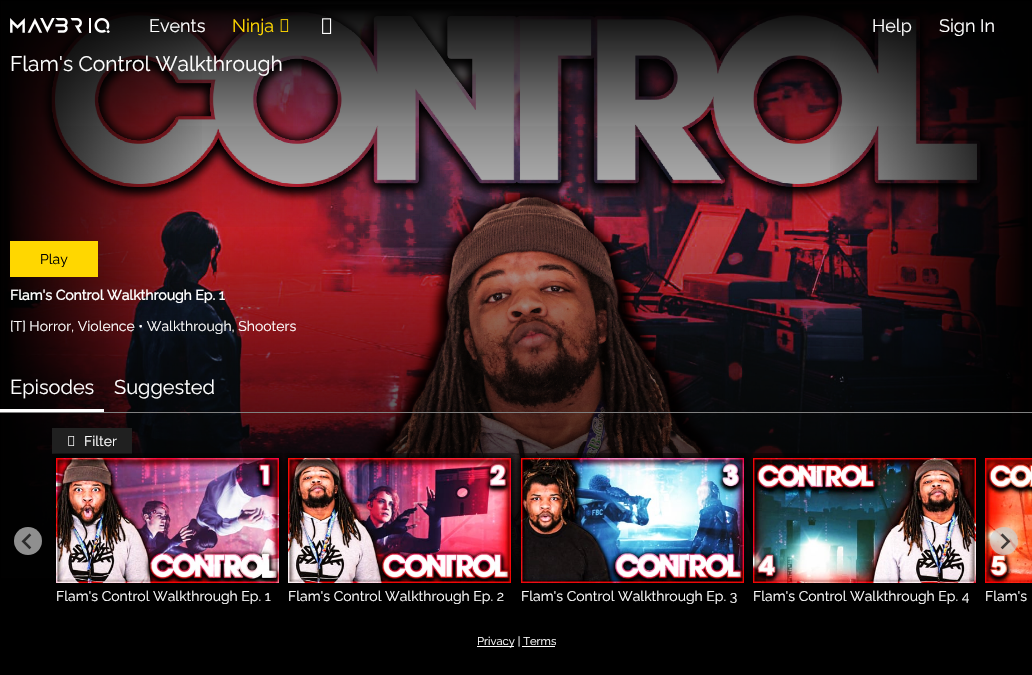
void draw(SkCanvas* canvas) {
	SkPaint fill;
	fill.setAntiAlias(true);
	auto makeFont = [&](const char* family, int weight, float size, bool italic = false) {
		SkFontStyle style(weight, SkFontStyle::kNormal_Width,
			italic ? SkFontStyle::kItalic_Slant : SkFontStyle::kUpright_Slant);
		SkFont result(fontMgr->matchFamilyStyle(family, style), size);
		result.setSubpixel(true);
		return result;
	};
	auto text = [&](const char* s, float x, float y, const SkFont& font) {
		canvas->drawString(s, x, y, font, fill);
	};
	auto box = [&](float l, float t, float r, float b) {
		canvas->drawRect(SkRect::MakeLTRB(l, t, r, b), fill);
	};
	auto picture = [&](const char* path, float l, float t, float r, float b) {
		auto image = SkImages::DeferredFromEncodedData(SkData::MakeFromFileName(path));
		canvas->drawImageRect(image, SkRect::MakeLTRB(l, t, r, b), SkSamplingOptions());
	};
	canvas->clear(0xFF000000);
	picture("image0.png", 1, 1, 1031, 578);
	{
		const SkColor colors[] = {0xFF000000, 0x00000000};
		const float stops[] = {0, 0.8f};
		const SkPoint ends[] = {{516, 581}, {516, 0}};
		fill.setShader(SkGradientShader::MakeLinear(ends, colors, stops, 2, SkTileMode::kClamp));
		fill.setAlpha(255);
	}
	box(1, 126, 1031, 578);
	{
		const SkColor colors[] = {0xFF000000, 0x00000000};
		const float stops[] = {0, 0.2f};
		const SkPoint ends[] = {{0, 291}, {1032, 290}};
		fill.setShader(SkGradientShader::MakeLinear(ends, colors, stops, 2, SkTileMode::kClamp));
		fill.setAlpha(255);
	}
	box(1, 1, 202, 576);
	{
		const SkColor colors[] = {0xFF000000, 0x00000000};
		const float stops[] = {0, 0.2f};
		const SkPoint ends[] = {{1032, 291}, {0, 290}};
		fill.setShader(SkGradientShader::MakeLinear(ends, colors, stops, 2, SkTileMode::kClamp));
		fill.setAlpha(255);
	}
	box(830, 1, 1031, 576);
	{
		const SkColor colors[] = {0xFF000000, 0x00000000};
		const float stops[] = {0, 0.4f};
		const SkPoint ends[] = {{516, 0}, {516, 581}};
		fill.setShader(SkGradientShader::MakeLinear(ends, colors, stops, 2, SkTileMode::kClamp));
		fill.setAlpha(255);
	}
	box(2, 1, 1030, 227);
	picture("image1.png", 10, 18, 110, 33);
	picture("image2.png", 280, 19, 289, 32);
	picture("image3.png", 322, 18, 332, 34);
	fill.setShader(nullptr);
	fill.setColor(0xFFFFD700);
	box(10, 241, 98, 277);
	fill.setColor(0xFFFFFFFF);
	box(0, 409, 104, 412);
	fill.setColor(0xFF808080);
	box(0, 412, 1032, 413);
	fill.setColor(0xFF202020);
	box(52, 428, 132, 454);
	picture("image4.png", 68, 436, 75, 446);
	canvas->save();
	canvas->clipRect(SkRect::MakeLTRB(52, 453, 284, 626));
	fill.setColor(0xFF000000);
	fill.setMaskFilter(SkMaskFilter::MakeBlur(kNormal_SkBlurStyle, 5));
	canvas->drawRect(SkRect::MakeLTRB(52, 454, 283, 587), fill);
	fill.setMaskFilter(nullptr);
	canvas->restore();
	fill.setColor(0xFF8F8F8F);
	canvas->drawCircle(28, 541, 14, fill);
	picture("image5.png", 21, 533, 32, 550);
	picture("image7.png", 56, 458, 279, 583);
	canvas->save();
	canvas->clipRect(SkRect::MakeLTRB(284, 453, 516, 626));
	fill.setColor(0xFF000000);
	fill.setMaskFilter(SkMaskFilter::MakeBlur(kNormal_SkBlurStyle, 5));
	canvas->drawRect(SkRect::MakeLTRB(284, 454, 515, 587), fill);
	fill.setMaskFilter(nullptr);
	canvas->restore();
	picture("image8.png", 288, 458, 511, 583);
	canvas->save();
	canvas->clipRect(SkRect::MakeLTRB(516, 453, 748, 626));
	fill.setMaskFilter(SkMaskFilter::MakeBlur(kNormal_SkBlurStyle, 5));
	canvas->drawRect(SkRect::MakeLTRB(517, 454, 748, 587), fill);
	fill.setMaskFilter(nullptr);
	canvas->restore();
	picture("image9.png", 521, 458, 744, 583);
	canvas->save();
	canvas->clipRect(SkRect::MakeLTRB(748, 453, 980, 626));
	fill.setMaskFilter(SkMaskFilter::MakeBlur(kNormal_SkBlurStyle, 5));
	canvas->drawRect(SkRect::MakeLTRB(749, 454, 980, 587), fill);
	fill.setMaskFilter(nullptr);
	canvas->restore();
	picture("image11.png", 985, 458, 1032, 583);
	fill.setColor(0xB3CCCCCC);
	canvas->drawCircle(1004, 541, 14, fill);
	picture("image6.png", 1000, 533, 1011, 550);
	picture("image10.png", 753, 458, 976, 583);
	fill.setColor(0xFFFFFFFF);
	box(477, 646, 514, 647);
	box(522, 646, 555, 647);
	auto font1 = makeFont("Raleway", 100, 18);
	text("Events", 149, 32, font1);
	fill.setColor(0xFFFFD700);
	text("Ninja", 232, 32, font1);
	fill.setColor(0xFFFFFFFF);
	text("Help", 872, 32, font1);
	text("Sign In", 939, 32, font1);
	auto font2 = makeFont("Raleway", 100, 21);
	text("Flam's Control Walkthrough", 10, 71, font2);
	auto font3 = makeFont("Raleway", 100, 14);
	fill.setColor(0xFF000000);
	text("Play", 40, 264, font3);
	auto font4 = makeFont("Raleway", 700, 14);
	fill.setColor(0xFFFFFFFF);
	text("Flam's Control Walkthrough Ep. 1", 10, 300, font4);
	text("[T] Horror, Violence • Walkthrough, Shooters", 10, 331, font3);
	auto font5 = makeFont("Raleway", 100, 20);
	text("Episodes", 10, 394, font5);
	text("Suggested", 114, 394, font5);
	text("Filter", 84, 446, font3);
	text("Flam's Control Walkthrough Ep. 1", 56, 601, font3);
	text("Flam's Control Walkthrough Ep. 2", 288, 601, font3);
	text("Flam's Control Walkthrough Ep. 3", 521, 601, font3);
	text("Flam's Control Walkthrough Ep. 4", 753, 601, font3);
	text("Flam's", 985, 601, font3);
	auto font6 = makeFont("Raleway", 100, 11.25f);
	text("Privacy | Terms", 477, 645, font6);
}
